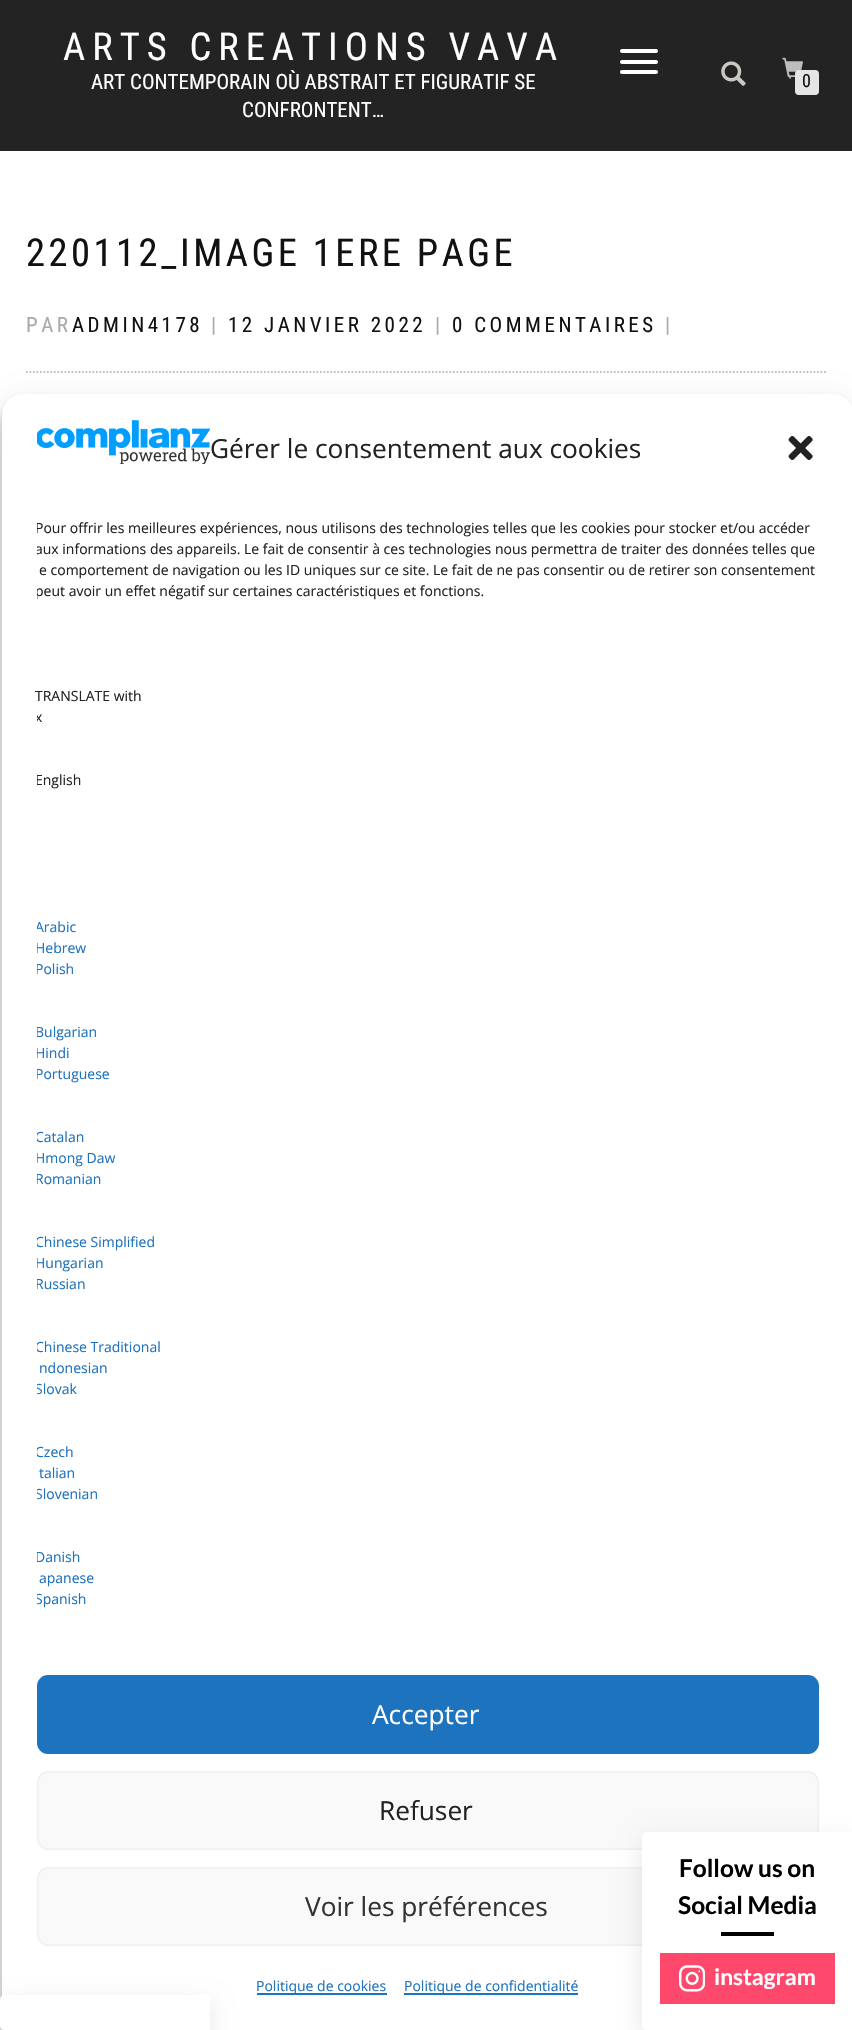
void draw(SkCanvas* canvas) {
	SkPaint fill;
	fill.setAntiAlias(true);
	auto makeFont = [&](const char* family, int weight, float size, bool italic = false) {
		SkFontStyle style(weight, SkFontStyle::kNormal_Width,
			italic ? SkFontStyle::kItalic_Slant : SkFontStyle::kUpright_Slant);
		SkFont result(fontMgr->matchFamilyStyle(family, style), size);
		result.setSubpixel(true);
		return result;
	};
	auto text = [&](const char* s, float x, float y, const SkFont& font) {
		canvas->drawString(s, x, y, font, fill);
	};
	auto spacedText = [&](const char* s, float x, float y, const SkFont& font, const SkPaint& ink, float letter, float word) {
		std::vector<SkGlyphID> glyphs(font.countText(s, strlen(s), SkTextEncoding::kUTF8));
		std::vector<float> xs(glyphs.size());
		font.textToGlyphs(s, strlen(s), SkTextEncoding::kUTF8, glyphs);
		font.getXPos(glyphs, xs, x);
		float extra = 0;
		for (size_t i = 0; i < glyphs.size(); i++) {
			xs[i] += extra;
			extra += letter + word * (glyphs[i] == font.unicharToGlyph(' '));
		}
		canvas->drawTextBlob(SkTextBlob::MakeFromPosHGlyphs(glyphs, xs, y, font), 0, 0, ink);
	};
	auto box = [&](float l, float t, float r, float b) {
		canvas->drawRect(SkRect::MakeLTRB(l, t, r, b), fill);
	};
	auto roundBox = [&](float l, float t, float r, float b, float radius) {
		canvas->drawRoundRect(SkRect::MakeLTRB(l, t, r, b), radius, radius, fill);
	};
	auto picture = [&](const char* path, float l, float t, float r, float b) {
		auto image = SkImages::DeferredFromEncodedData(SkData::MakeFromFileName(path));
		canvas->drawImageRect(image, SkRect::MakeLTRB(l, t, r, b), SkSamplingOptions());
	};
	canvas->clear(0xFFFFFFFF);
	fill.setColor(0xFF232323);
	box(0, 0, 852, 151);
	fill.setColor(0xFFFFFFFF);
	roundBox(620, 49, 658, 53, 2);
	roundBox(620, 60, 658, 64, 2);
	roundBox(620, 70, 658, 74, 2);
	picture("image0.png", 721, 61, 746, 86);
	picture("image1.png", 782, 57, 803, 79);
	fill.setColor(0xFFE5E5E5);
	roundBox(795, 70, 819, 95, 4);
	fill.setStyle(SkPaint::kStroke_Style);
	fill.setStrokeWidth(1.8f);
	fill.setColor(0xFFC2C2C2);
	fill.setPathEffect(SkDashPathEffect::Make({{1.75f, 1.75f}}, 0));
	canvas->drawPath(SkPathBuilder().moveTo(26, 372).lineTo(826, 372).detach(), fill);
	fill.setPathEffect(nullptr);
	fill.setStyle(SkPaint::kFill_Style);
	fill.setColor(0x3B000000);
	fill.setMaskFilter(SkMaskFilter::MakeBlur(kNormal_SkBlurStyle, 5));
	canvas->drawRoundRect(SkRect::MakeLTRB(2, 404, 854, 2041), 21, 21, fill);
	fill.setMaskFilter(nullptr);
	fill.setColor(0x30000000);
	fill.setMaskFilter(SkMaskFilter::MakeBlur(kNormal_SkBlurStyle, 17.5f));
	canvas->drawRoundRect(SkRect::MakeLTRB(2, 411, 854, 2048), 21, 21, fill);
	fill.setMaskFilter(nullptr);
	fill.setColor(0xFFFFFFFF);
	roundBox(2, 394, 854, 2030, 21);
	picture("image2.png", 37, 420, 210, 464);
	picture("image3.png", 788, 436, 813, 460);
	fill.setColor(0xFF1E73BE);
	canvas->drawRoundRect(SkRect::MakeLTRB(38, 1676, 818, 1753), 10, 10, fill);
	fill.setStyle(SkPaint::kStroke_Style);
	fill.setStrokeWidth(2);
	canvas->drawRoundRect(SkRect::MakeLTRB(38, 1676, 818, 1753), 10, 10, fill);
	fill.setStyle(SkPaint::kFill_Style);
	fill.setColor(0xFFF9F9F9);
	canvas->drawRoundRect(SkRect::MakeLTRB(38, 1772, 818, 1849), 10, 10, fill);
	fill.setStyle(SkPaint::kStroke_Style);
	fill.setColor(0xFFF2F2F2);
	canvas->drawRoundRect(SkRect::MakeLTRB(38, 1772, 818, 1849), 10, 10, fill);
	fill.setStyle(SkPaint::kFill_Style);
	fill.setColor(0xFFF9F9F9);
	canvas->drawRoundRect(SkRect::MakeLTRB(38, 1868, 818, 1945), 10, 10, fill);
	fill.setStyle(SkPaint::kStroke_Style);
	fill.setColor(0xFFF2F2F2);
	canvas->drawRoundRect(SkRect::MakeLTRB(38, 1868, 818, 1945), 10, 10, fill);
	fill.setStyle(SkPaint::kFill_Style);
	fill.setColor(0xFF1E73BE);
	box(257, 1993, 387, 1995);
	box(404, 1993, 578, 1995);
	fill.setColor(0x1A000000);
	fill.setMaskFilter(SkMaskFilter::MakeBlur(kNormal_SkBlurStyle, 11.5f));
	canvas->drawRoundRect(SkRect::MakeLTRB(642, 1841, 852, 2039), 5, 5, fill);
	fill.setMaskFilter(nullptr);
	fill.setColor(0xFFFFFFFF);
	canvas->drawPath(SkPathBuilder().moveTo(647, 1832).lineTo(852, 1832).lineTo(852, 2030).lineTo(647, 2030).cubicTo(644, 2030, 642, 2028, 642, 2025).lineTo(642, 1837).cubicTo(642, 1834, 644, 1832, 647, 1832).close().detach(), fill);
	fill.setColor(0xFF000000);
	box(721, 1932, 774, 1936);
	fill.setColor(0xFFFF496C);
	box(660, 1953, 835, 2004);
	picture("image4.png", 679, 1965, 705, 1992);
	fill.setColor(0x1A000000);
	fill.setMaskFilter(SkMaskFilter::MakeBlur(kNormal_SkBlurStyle, 11.5f));
	canvas->drawRoundRect(SkRect::MakeLTRB(0, 2004, 210, 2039), 5, 5, fill);
	fill.setMaskFilter(nullptr);
	fill.setColor(0xFFFFFFFF);
	canvas->drawPath(SkPathBuilder().moveTo(5, 1995).lineTo(210, 1995).lineTo(210, 2030).lineTo(5, 2030).cubicTo(2, 2030, 0, 2028, 0, 2025).lineTo(0, 2000).cubicTo(0, 1997, 2, 1995, 5, 1995).close().detach(), fill);
	auto font1 = makeFont("Roboto Condensed", 400, 38.5f);
	spacedText("ARTS CREATIONS VAVA", 63, 60, font1, fill, 7, 0);
	auto font2 = makeFont("Roboto Condensed", 400, 21);
	text("ART CONTEMPORAIN OÙ ABSTRAIT ET FIGURATIF SE", 91, 89, font2);
	text("CONFRONTENT…", 242, 117, font2);
	auto font3 = makeFont("Roboto Condensed", 400, 18);
	fill.setColor(0xFF111111);
	text("0", 802, 87, font3);
	spacedText("220112_IMAGE 1ERE PAGE", 26, 266, font1, fill, 3.5f, 0);
	fill.setColor(0xFFAAAAAA);
	spacedText("PAR", 26, 332, font2, fill, 3.5f, 0);
	fill.setColor(0xFF111111);
	spacedText("ADMIN4178", 72, 332, font2, fill, 3.5f, 0);
	fill.setColor(0xFFAAAAAA);
	spacedText("|", 211, 332, font2, fill, 3.5f, 0);
	fill.setColor(0xFF111111);
	spacedText("12 JANVIER 2022", 228, 332, font2, fill, 3.5f, 0);
	fill.setColor(0xFFAAAAAA);
	spacedText("|", 435, 332, font2, fill, 3.5f, 0);
	fill.setColor(0xFF111111);
	spacedText("0 COMMENTAIRES", 452, 332, font2, fill, 3.5f, 0);
	fill.setColor(0xFFAAAAAA);
	spacedText("|", 665, 332, font2, fill, 3.5f, 0);
	auto font4 = makeFont("Open Sans", 400, 26.25f);
	fill.setColor(0xFF222222);
	text("Gérer le consentement aux cookies", 210, 458, font4);
	canvas->save();
	canvas->clipRect(SkRect::MakeLTRB(37, 518, 819, 1635));
	auto font5 = makeFont("Open Sans", 400, 14);
	text("Pour offrir les meilleures expériences, nous utilisons des technologies telles que les cookies pour stocker et/ou accéder", 35, 533, font5);
	text("aux informations des appareils. Le fait de consentir à ces technologies nous permettra de traiter des données telles que", 35, 554, font5);
	canvas->restore();
	text("e comportement de navigation ou les ID uniques sur ce site. Le fait de ne pas consentir ou de retirer son consentement", 39, 575, font5);
	canvas->save();
	canvas->clipRect(SkRect::MakeLTRB(37, 518, 819, 1635));
	text("peut avoir un effet négatif sur certaines caractéristiques et fonctions.", 35, 596, font5);
	canvas->restore();
	text("TRANSLATE with", 35, 701, font5);
	canvas->save();
	canvas->clipRect(SkRect::MakeLTRB(37, 518, 819, 1635));
	text("x", 35, 722, font5);
	text("English", 35, 785, font5);
	fill.setColor(0xFF1E73BE);
	text("Arabic", 35, 932, font5);
	text("Hebrew", 35, 953, font5);
	text("Polish", 35, 974, font5);
	text("Bulgarian", 35, 1037, font5);
	text("Hindi", 35, 1058, font5);
	text("Portuguese", 35, 1079, font5);
	text("Catalan", 35, 1142, font5);
	text("Hmong Daw", 35, 1163, font5);
	text("Romanian", 35, 1184, font5);
	text("Chinese Simplified", 35, 1247, font5);
	text("Hungarian", 35, 1268, font5);
	text("Russian", 35, 1289, font5);
	text("Chinese Traditional", 35, 1352, font5);
	canvas->restore();
	text("ndonesian", 39, 1373, font5);
	canvas->save();
	canvas->clipRect(SkRect::MakeLTRB(37, 518, 819, 1635));
	text("Slovak", 35, 1394, font5);
	text("Czech", 35, 1457, font5);
	canvas->restore();
	text("talian", 39, 1478, font5);
	canvas->save();
	canvas->clipRect(SkRect::MakeLTRB(37, 518, 819, 1635));
	text("Slovenian", 35, 1499, font5);
	text("Danish", 35, 1562, font5);
	canvas->restore();
	text("apanese", 39, 1583, font5);
	canvas->save();
	canvas->clipRect(SkRect::MakeLTRB(37, 518, 819, 1635));
	text("Spanish", 35, 1604, font5);
	canvas->restore();
	fill.setColor(0xFFFFFFFF);
	text("Accepter", 372, 1724, font4);
	fill.setColor(0xFF222222);
	text("Refuser", 379, 1820, font4);
	fill.setColor(0xFF333333);
	text("Voir les préférences", 305, 1916, font4);
	fill.setColor(0xFF1E73BE);
	text("Politique de cookies", 256, 1991, font5);
	text("Politique de confidentialité", 404, 1991, font5);
	auto font6 = makeFont("Lato", 700, 24.5f);
	fill.setColor(0xFF000000);
	text("Follow us on", 679, 1877, font6);
	text("Social Media", 678, 1914, font6);
	auto font7 = makeFont("Lato", 700, 22.75f);
	fill.setColor(0xFFFFFFFF);
	text("instagram", 714, 1985, font7);
}
